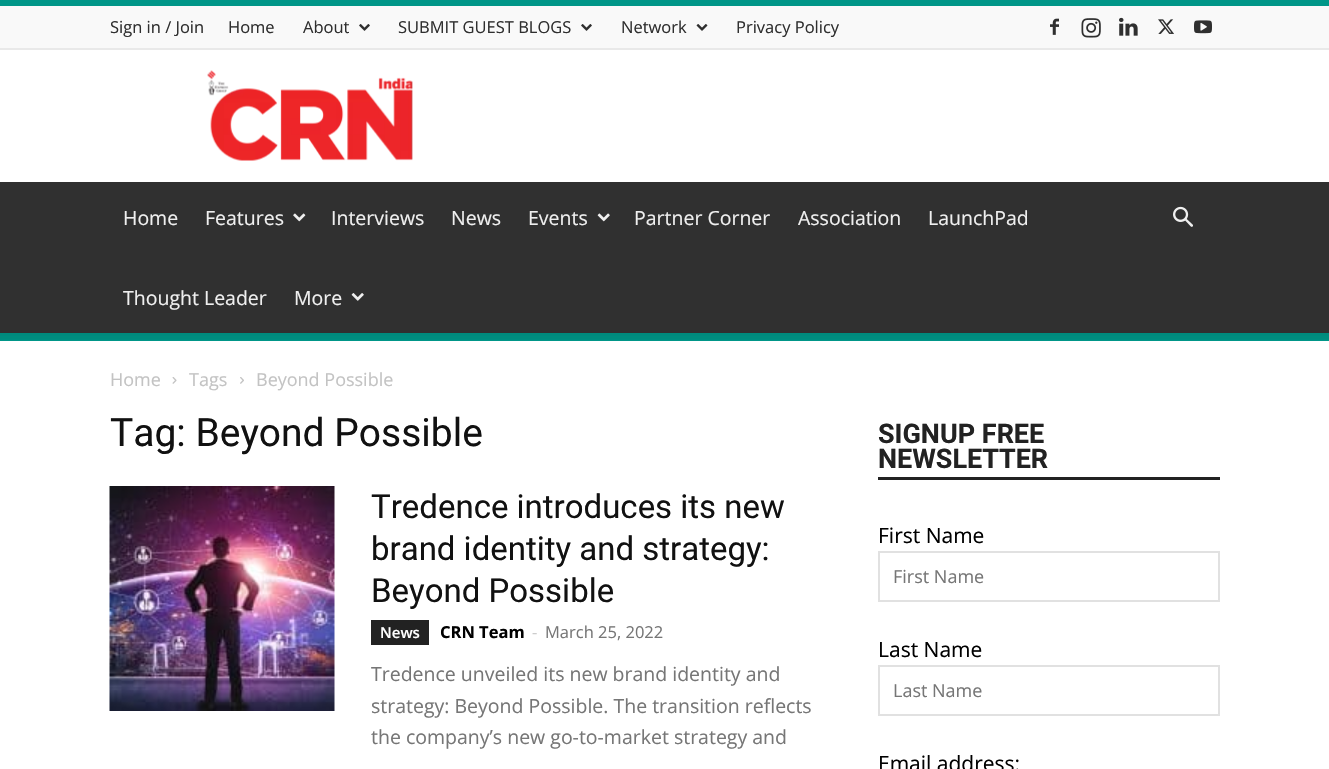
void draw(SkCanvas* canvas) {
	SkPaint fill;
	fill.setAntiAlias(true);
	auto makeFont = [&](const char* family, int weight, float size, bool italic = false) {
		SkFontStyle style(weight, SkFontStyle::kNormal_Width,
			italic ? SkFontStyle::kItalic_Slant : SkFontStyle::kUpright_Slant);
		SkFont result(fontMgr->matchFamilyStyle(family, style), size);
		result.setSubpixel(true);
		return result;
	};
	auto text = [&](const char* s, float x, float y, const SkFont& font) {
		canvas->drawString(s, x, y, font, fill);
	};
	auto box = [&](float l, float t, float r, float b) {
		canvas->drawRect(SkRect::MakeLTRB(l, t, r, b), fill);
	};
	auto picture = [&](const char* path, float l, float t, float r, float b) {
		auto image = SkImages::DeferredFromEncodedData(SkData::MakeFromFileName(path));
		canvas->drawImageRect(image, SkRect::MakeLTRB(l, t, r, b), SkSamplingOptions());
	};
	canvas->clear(0xFFFFFFFF);
	fill.setColor(0xFFF9F9F9);
	box(0, 6, 1329, 48);
	fill.setColor(0xFF009688);
	box(0, 0, 1329, 6);
	fill.setColor(0xFFE9E9E9);
	box(0, 48, 1329, 50);
	picture("image0.png", 359, 24, 370, 31);
	picture("image0.png", 581, 24, 592, 31);
	picture("image1.png", 696, 24, 708, 31);
	picture("image2.png", 1050, 18, 1059, 35);
	picture("image3.png", 1081, 18, 1101, 38);
	picture("image4.png", 1119, 17, 1138, 36);
	picture("image5.png", 1158, 19, 1174, 34);
	picture("image6.png", 1194, 20, 1212, 34);
	picture("image7.png", 207, 70, 413, 161);
	fill.setColor(0xFF303030);
	box(0, 182, 1329, 333);
	picture("image8.png", 293, 213, 306, 222);
	picture("image9.png", 597, 213, 610, 222);
	picture("image10.png", 351, 293, 364, 301);
	picture("image11.png", 1173, 206, 1193, 227);
	fill.setColor(0xFF009688);
	box(0, 333, 1329, 341);
	picture("image12.png", 0, 333, 1329, 340);
	picture("image13.png", 172, 377, 177, 384);
	picture("image14.png", 240, 377, 244, 384);
	picture("image15.png", 109, 486, 335, 711);
	fill.setColor(0xFF222222);
	box(371, 620, 429, 645);
	box(878, 477, 1220, 480);
	fill.setStyle(SkPaint::kStroke_Style);
	fill.setStrokeWidth(2);
	fill.setColor(0xFFE1E1E1);
	canvas->drawRect(SkRect::MakeLTRB(879, 552, 1219, 601), fill);
	canvas->drawRect(SkRect::MakeLTRB(879, 666, 1219, 715), fill);
	auto font1 = makeFont("Open Sans", 400, 16.5f);
	fill.setStyle(SkPaint::kFill_Style);
	fill.setColor(0xFF2F2F2F);
	text("Sign in / Join", 110, 33, font1);
	text("Home", 228, 33, font1);
	text("About", 303, 33, font1);
	text("SUBMIT GUEST BLOGS", 398, 33, font1);
	text("Network", 621, 33, font1);
	text("Privacy Policy", 736, 33, font1);
	auto font2 = makeFont("Open Sans", 400, 19.5f);
	fill.setColor(0xFFEFEFEF);
	text("Home", 123, 225, font2);
	text("Features", 205, 225, font2);
	text("Interviews", 331, 225, font2);
	text("News", 451, 225, font2);
	text("Events", 528, 225, font2);
	text("Partner Corner", 634, 225, font2);
	text("Association", 798, 225, font2);
	text("LaunchPad", 928, 225, font2);
	text("Thought Leader", 123, 305, font2);
	text("More", 294, 305, font2);
	auto font3 = makeFont("Open Sans", 400, 18);
	fill.setColor(0xFFC3C3C3);
	text("Home", 110, 386, font3);
	text("Tags", 189, 386, font3);
	text("Beyond Possible", 256, 386, font3);
	auto font4 = makeFont("Roboto", 400, 39);
	fill.setColor(0xFF111111);
	text("Tag: Beyond Possible", 110, 446, font4);
	auto font5 = makeFont("Roboto", 400, 33);
	text("Tredence introduces its new", 371, 518, font5);
	text("brand identity and strategy:", 371, 560, font5);
	text("Beyond Possible", 371, 602, font5);
	auto font6 = makeFont("Open Sans", 600, 15);
	fill.setColor(0xFFFFFFFF);
	text("News", 380, 638, font6);
	auto font7 = makeFont("Open Sans", 700, 16.5f);
	fill.setColor(0xFF000000);
	text("CRN Team", 440, 638, font7);
	fill.setColor(0xFFCCCCCC);
	text("-", 532, 638, font1);
	fill.setColor(0xFF767676);
	text("March 25, 2022", 545, 638, font1);
	text("Tredence unveiled its new brand identity and", 371, 681, font2);
	text("strategy: Beyond Possible. The transition reflects", 371, 713, font2);
	text("the company’s new go-to-market strategy and", 371, 744, font2);
	auto font8 = makeFont("Roboto", 700, 27);
	fill.setColor(0xFF222222);
	text("SIGNUP FREE", 878, 443, font8);
	text("NEWSLETTER", 878, 468, font8);
	auto font9 = makeFont("Open Sans", 400, 21);
	fill.setColor(0xFF000000);
	text("First Name", 878, 543, font9);
	fill.setColor(0xFF767676);
	text("First Name", 893, 583, font3);
	fill.setColor(0xFF000000);
	text("Last Name", 878, 657, font9);
	fill.setColor(0xFF767676);
	text("Last Name", 893, 697, font3);
	fill.setColor(0xFF000000);
	text("Email address:", 878, 771, font9);
}
